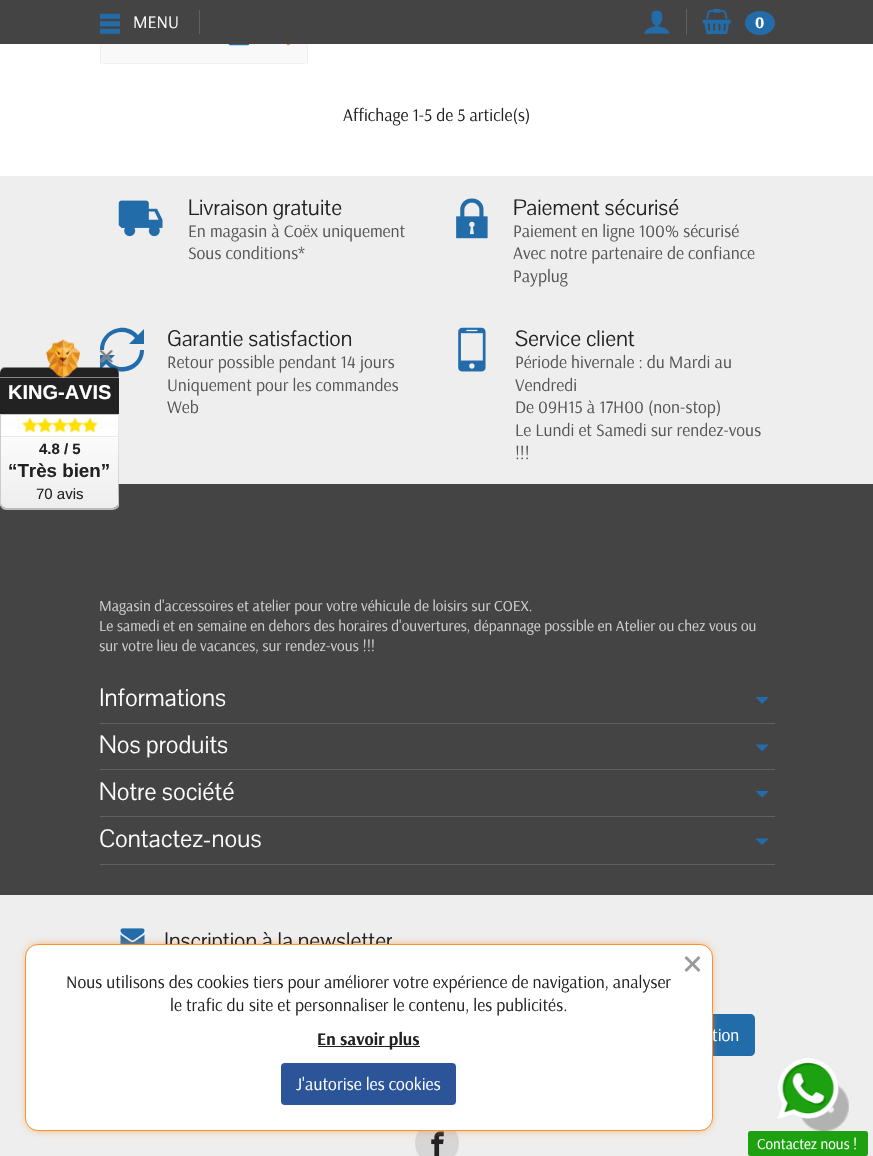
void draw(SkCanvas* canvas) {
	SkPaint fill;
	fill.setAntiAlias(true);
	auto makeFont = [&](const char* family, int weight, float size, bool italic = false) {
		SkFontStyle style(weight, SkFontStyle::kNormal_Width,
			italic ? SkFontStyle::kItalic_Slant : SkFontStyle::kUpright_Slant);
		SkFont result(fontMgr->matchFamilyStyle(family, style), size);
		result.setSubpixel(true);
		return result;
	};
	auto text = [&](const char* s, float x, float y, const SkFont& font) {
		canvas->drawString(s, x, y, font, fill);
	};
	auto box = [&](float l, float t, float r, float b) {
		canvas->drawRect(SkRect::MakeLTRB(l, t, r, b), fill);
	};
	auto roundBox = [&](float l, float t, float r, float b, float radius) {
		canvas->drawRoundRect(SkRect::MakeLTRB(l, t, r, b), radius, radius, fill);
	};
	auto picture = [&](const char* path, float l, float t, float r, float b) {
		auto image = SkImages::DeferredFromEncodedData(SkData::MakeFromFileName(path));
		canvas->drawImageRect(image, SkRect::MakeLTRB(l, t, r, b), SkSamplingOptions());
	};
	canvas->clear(0xFFFFFFFF);
	fill.setColor(0xFFF9F9F9);
	roundBox(100, -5, 308, 64, 5);
	fill.setStyle(SkPaint::kStroke_Style);
	fill.setStrokeWidth(1);
	fill.setColor(0x0A000000);
	canvas->drawRect(SkRect::MakeLTRB(100.5f, -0.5f, 307.5f, 63.5f), fill);
	fill.setStyle(SkPaint::kFill_Style);
	fill.setColor(0xFF444444);
	box(0, 0, 873, 44);
	fill.setColor(0xFF606060);
	box(199, 10, 200, 34);
	picture("image0.png", 100, 13, 120, 34);
	picture("image1.png", 644, 10, 670, 34);
	box(686, 9, 687, 35);
	picture("image2.png", 702, 9, 731, 35);
	fill.setColor(0xFF226CAA);
	canvas->drawOval(SkRect::MakeLTRB(745, 11, 775, 35), fill);
	picture("image3.png", 228, 44, 250, 46);
	picture("image4.png", 286, 44, 290, 46);
	fill.setColor(0xFFEEEEEE);
	box(0, 176, 873, 484);
	fill.setColor(0xFF226CAA);
	canvas->drawPath(SkPathBuilder().moveTo(138, 335).cubicTo(125, 320, 100, 330, 100, 350).lineTo(104, 350).cubicTo(104, 333, 124, 326, 135, 338).lineTo(129, 344).lineTo(144, 344).lineTo(144, 329).close().moveTo(140, 350).cubicTo(140, 366, 119, 373, 109, 361).lineTo(115, 355).lineTo(100, 355).lineTo(100, 370).lineTo(106, 364).cubicTo(119, 379, 144, 370, 144, 350).close().detach(), fill);
	picture("image5.png", 0, 339, 119, 378);
	fill.setColor(0xFF222222);
	box(0, 378, 119, 414);
	fill.setColor(0xFF444444);
	box(0, 484, 873, 895);
	{
		const SkColor colors[] = {0xFFFFFFFF, 0xFFEEEEEE};
		const float stops[] = {0, 1};
		const SkPoint ends[] = {{59, 415}, {59, 508}};
		fill.setShader(SkGradientShader::MakeLinear(ends, colors, stops, 2, SkTileMode::kClamp));
		fill.setAlpha(255);
	}
	canvas->drawPath(SkPathBuilder().moveTo(1, 415).lineTo(118, 415).lineTo(118, 504).cubicTo(118, 506, 115, 508, 112, 508).lineTo(6, 508).cubicTo(3, 508, 1, 506, 1, 504).close().detach(), fill);
	fill.setShader(nullptr);
	fill.setColor(0xFFCCCCCC);
	canvas->drawPath(SkPathBuilder().moveTo(118, 414).lineTo(0, 414).lineTo(1, 415).lineTo(118, 415).close().detach(), fill);
	canvas->drawPath(SkPathBuilder().moveTo(119, 506).lineTo(118, 508).lineTo(117, 506).lineTo(118, 504).lineTo(118, 415).lineTo(118, 414).close().detach(), fill);
	fill.setColor(0xFFBBBBBB);
	canvas->drawPath(SkPathBuilder().moveTo(6, 510).lineTo(112, 510).cubicTo(114, 510, 116, 509, 118, 508).lineTo(117, 506).cubicTo(116, 507, 114, 508, 112, 508).lineTo(6, 508).cubicTo(4, 508, 3, 507, 2, 506).lineTo(1, 507).cubicTo(2, 509, 4, 510, 6, 510).close().detach(), fill);
	fill.setColor(0xFFCCCCCC);
	canvas->drawPath(SkPathBuilder().moveTo(1, 415).lineTo(1, 504).lineTo(2, 506).lineTo(1, 507).cubicTo(0, 506, 0, 505, 0, 504).lineTo(0, 414).close().detach(), fill);
	picture("image6.png", 99, 350, 114, 363);
	fill.setColor(0xFFFFFFFF);
	box(1, 429, 118, 438);
	fill.setColor(0xFFE9E9E9);
	box(1, 436, 118, 437);
	picture("image7.png", 22, 417, 38, 433);
	picture("image8.png", 37, 417, 54, 433);
	picture("image9.png", 52, 417, 68, 433);
	picture("image10.png", 67, 417, 84, 433);
	picture("image9.png", 82, 417, 98, 433);
	picture("image11.png", 118, 200, 163, 237);
	picture("image12.png", 456, 198, 488, 239);
	picture("image13.png", 458, 327, 486, 372);
	fill.setColor(0xFF606060);
	box(100, 723, 775, 724);
	fill.setColor(0xFF226CAA);
	canvas->drawPath(SkPathBuilder().moveTo(755.5f, 697).lineTo(769, 697).lineTo(762, 704).close().detach(), fill);
	fill.setColor(0xFF606060);
	box(100, 769, 775, 770);
	fill.setColor(0xFF226CAA);
	canvas->drawPath(SkPathBuilder().moveTo(755.5f, 744.5f).lineTo(769, 744.5f).lineTo(762, 751.5f).close().detach(), fill);
	fill.setColor(0xFF606060);
	box(100, 816, 775, 817);
	fill.setColor(0xFF226CAA);
	canvas->drawPath(SkPathBuilder().moveTo(755.5f, 791).lineTo(769, 791).lineTo(762, 797.5f).close().detach(), fill);
	fill.setColor(0xFF606060);
	box(100, 864, 775, 865);
	fill.setColor(0xFF226CAA);
	canvas->drawPath(SkPathBuilder().moveTo(755.5f, 838.5f).lineTo(769, 838.5f).lineTo(762, 845).close().detach(), fill);
	fill.setColor(0xFFEEEEEE);
	box(0, 895, 873, 1156);
	picture("image14.png", 800, 1084, 849, 1131);
	picture("image15.png", 776, 1057, 839, 1120);
	fill.setColor(0xFF1DA110);
	roundBox(748, 1131, 868, 1156, 2.5f);
	picture("image16.png", 120, 928, 145, 944);
	fill.setColor(0xFF226CAA);
	canvas->drawPath(SkPathBuilder().moveTo(650, 1014).lineTo(750, 1014).cubicTo(753, 1014, 755, 1016, 755, 1019).lineTo(755, 1051).cubicTo(755, 1054, 753, 1056, 750, 1056).lineTo(650, 1056).close().detach(), fill);
	fill.setColor(0xFFD6D6D6);
	canvas->drawCircle(437, 1143, 22, fill);
	picture("image17.png", 431, 1131, 444, 1156);
	fill.setColor(0xFFF59332);
	fill.setMaskFilter(SkMaskFilter::MakeBlur(kNormal_SkBlurStyle, 4.5f));
	canvas->drawRoundRect(SkRect::MakeLTRB(28, 946, 710, 1129), 10, 10, fill);
	fill.setMaskFilter(nullptr);
	auto font1 = makeFont("Arsenal", 400, 17.5f);
	fill.setColor(0xFFFFFFFF);
	text("MENU", 133, 28, font1);
	auto font2 = makeFont("Arsenal", 700, 16);
	text("0", 755, 28, font2);
	fill.setColor(0xFF222222);
	text("Affichage 1-5 de 5 article(s)", 343, 121, font1);
	auto font3 = makeFont("Liberation Sans", 700, 20);
	fill.setColor(0xFFFFFFFF);
	text("KING-AVIS", 8, 399, font3);
	auto font4 = makeFont("Liberation Sans", 700, 15);
	fill.setColor(0xFF222222);
	text("4.8 / 5", 39, 454, font4);
	auto font5 = makeFont("Liberation Sans", 700, 18.75f);
	text("“Très bien”", 8, 477, font5);
	auto font6 = makeFont("Liberation Sans", 400, 15);
	text("70 avis", 36, 499, font6);
	auto font7 = makeFont("Pavanam", 400, 23);
	text("Livraison gratuite", 188, 215, font7);
	fill.setColor(0xFF555555);
	text("En magasin à Coëx uniquement", 188, 237, font1);
	text("Sous conditions*", 188, 259, font1);
	fill.setColor(0xFF222222);
	text("Paiement sécurisé", 513, 215, font7);
	fill.setColor(0xFF555555);
	text("Paiement en ligne 100% sécurisé", 513, 237, font1);
	text("Avec notre partenaire de confiance", 513, 259, font1);
	text("Payplug", 513, 282, font1);
	fill.setColor(0xFF222222);
	text("Garantie satisfaction", 167, 346, font7);
	fill.setColor(0xFF555555);
	text("Retour possible pendant 14 jours", 167, 368, font1);
	text("Uniquement pour les commandes", 167, 391, font1);
	text("Web", 167, 413, font1);
	fill.setColor(0xFF222222);
	text("Service client", 515, 346, font7);
	fill.setColor(0xFF555555);
	text("Période hivernale : du Mardi au", 515, 368, font1);
	text("Vendredi", 515, 391, font1);
	text("De 09H15 à 17H00 (non-stop)", 515, 413, font1);
	text("Le Lundi et Samedi sur rendez-vous", 515, 436, font1);
	text("!!!", 515, 459, font1);
	auto font8 = makeFont("Arsenal", 400, 15.3f);
	fill.setColor(0xFFD0D0D0);
	text("Magasin d'accessoires et atelier pour votre véhicule de loisirs sur COEX.", 99, 611, font8);
	text("Le samedi et en semaine en dehors des horaires d'ouvertures, dépannage possible en Atelier ou chez vous ou", 99, 631, font8);
	text("sur votre lieu de vacances, sur rendez-vous !!!", 99, 651, font8);
	auto font9 = makeFont("Pavanam", 400, 25.75f);
	fill.setColor(0xFFFFFFFF);
	text("Informations", 99, 706, font9);
	text("Nos produits", 99, 753, font9);
	text("Notre société", 99, 800, font9);
	text("Contactez-nous", 99, 847, font9);
	auto font10 = makeFont("Arsenal", 400, 15);
	text("Contactez nous !", 757, 1149, font10);
	fill.setColor(0xFF222222);
	text("Inscription à la newsletter", 164, 948, font7);
	fill.setColor(0xFFFFFFFF);
	text("tion", 712, 1041, font1);
	canvas->drawRoundRect(SkRect::MakeLTRB(25.5f, 944.5f, 712.5f, 1130.5f), 12.5f, 12.5f, fill);
	fill.setStyle(SkPaint::kStroke_Style);
	fill.setColor(0xFFF59332);
	canvas->drawRoundRect(SkRect::MakeLTRB(25.5f, 944.5f, 712.5f, 1130.5f), 12.5f, 12.5f, fill);
	fill.setStyle(SkPaint::kFill_Style);
	fill.setColor(0xFF999999);
	canvas->drawPath(SkPathBuilder().moveTo(684.5f, 970).lineTo(698.5f, 956).lineTo(700.5f, 958).lineTo(686.5f, 972).close().detach(), fill);
	canvas->drawPath(SkPathBuilder().moveTo(686.5f, 956).lineTo(700.5f, 970).lineTo(698.5f, 972).lineTo(684.5f, 958).close().detach(), fill);
	fill.setColor(0xFF222222);
	text("Nous utilisons des cookies tiers pour améliorer votre expérience de navigation, analyser", 66, 988, font1);
	text("le trafic du site et personnaliser le contenu, les publicités.", 170, 1011, font1);
	box(318, 1046, 420, 1047);
	auto font11 = makeFont("Arsenal", 700, 17.5f);
	text("En savoir plus", 317, 1045, font11);
	fill.setColor(0xFF2C5499);
	roundBox(281, 1063, 456, 1105, 4);
	fill.setColor(0xFFFFFFFF);
	text("J'autorise les cookies", 296, 1090, font1);
}
